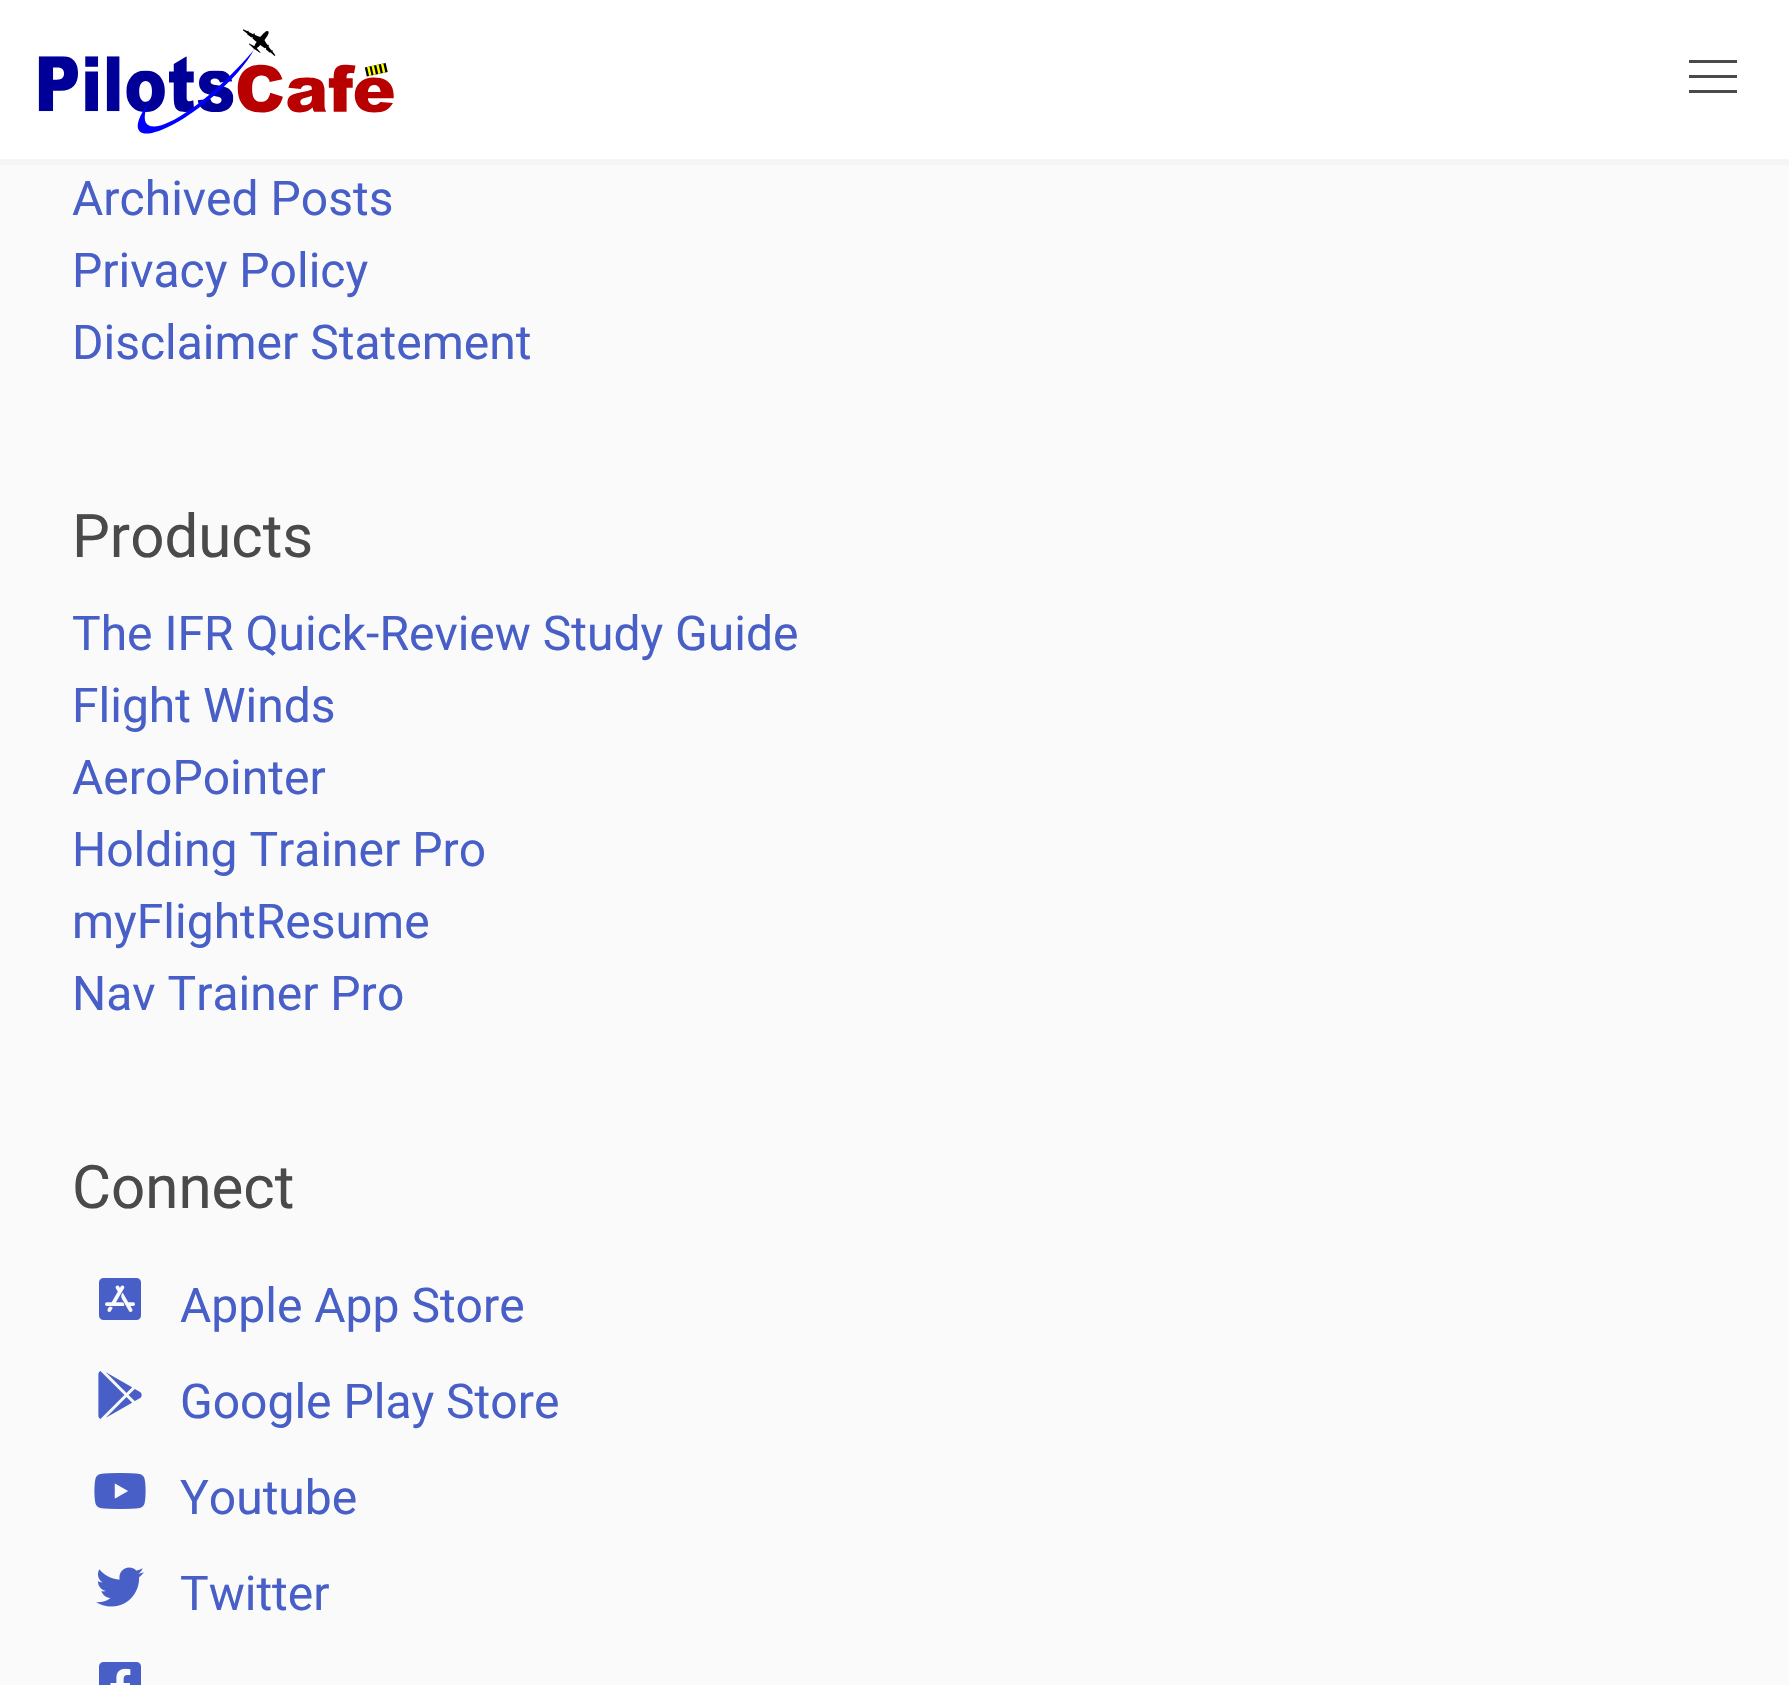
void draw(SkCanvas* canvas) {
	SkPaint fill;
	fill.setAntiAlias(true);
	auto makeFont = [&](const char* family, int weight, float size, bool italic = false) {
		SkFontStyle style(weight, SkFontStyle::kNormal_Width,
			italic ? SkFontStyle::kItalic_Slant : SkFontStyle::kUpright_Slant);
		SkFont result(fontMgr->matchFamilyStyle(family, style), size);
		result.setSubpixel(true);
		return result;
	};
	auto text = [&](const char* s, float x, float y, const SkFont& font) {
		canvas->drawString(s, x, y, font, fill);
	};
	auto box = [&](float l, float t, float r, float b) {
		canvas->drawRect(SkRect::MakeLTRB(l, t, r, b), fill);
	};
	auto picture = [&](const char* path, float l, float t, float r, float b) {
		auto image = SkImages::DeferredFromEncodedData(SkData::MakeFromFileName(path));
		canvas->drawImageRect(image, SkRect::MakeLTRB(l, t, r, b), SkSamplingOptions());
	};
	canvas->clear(0xFFFAFAFA);
	fill.setColor(0xFFF5F5F5);
	box(0, 159, 1789, 165);
	fill.setColor(0xFFFFFFFF);
	box(0, 0, 1789, 159);
	picture("image0.png", 38, 29, 394, 134);
	fill.setColor(0xFF4A4A4A);
	box(1689, 60, 1737, 63);
	box(1689, 75, 1737, 78);
	box(1689, 90, 1737, 93);
	picture("image1.png", 99, 1278, 141, 1320);
	picture("image2.png", 98, 1371, 142, 1419);
	picture("image3.png", 94, 1473, 146, 1509);
	picture("image4.png", 96, 1567, 144, 1607);
	picture("image5.png", 99, 1662, 141, 1685);
	auto font1 = makeFont("Roboto", 400, 48);
	fill.setColor(0xFF485FC7);
	text("Archived Posts", 72, 215, font1);
	text("Privacy Policy", 72, 287, font1);
	text("Disclaimer Statement", 72, 359, font1);
	auto font2 = makeFont("Roboto", 400, 60);
	fill.setColor(0xFF4A4A4A);
	text("Products", 72, 557, font2);
	fill.setColor(0xFF485FC7);
	text("The IFR Quick-Review Study Guide", 72, 650, font1);
	text("Flight Winds", 72, 722, font1);
	text("AeroPointer", 72, 794, font1);
	text("Holding Trainer Pro", 72, 866, font1);
	text("myFlightResume", 72, 938, font1);
	text("Nav Trainer Pro", 72, 1010, font1);
	fill.setColor(0xFF4A4A4A);
	text("Connect", 72, 1208, font2);
	fill.setColor(0xFF485FC7);
	text("Apple App Store", 180, 1322, font1);
	text("Google Play Store", 180, 1418, font1);
	text("Youtube", 180, 1514, font1);
	text("Twitter", 180, 1610, font1);
}
